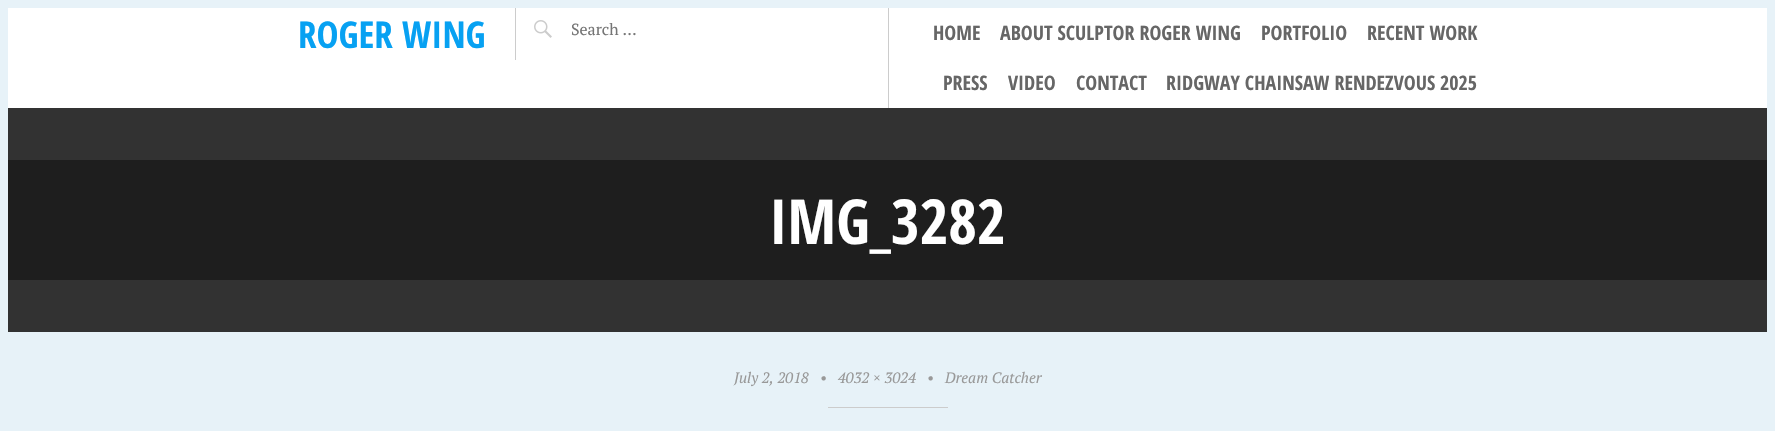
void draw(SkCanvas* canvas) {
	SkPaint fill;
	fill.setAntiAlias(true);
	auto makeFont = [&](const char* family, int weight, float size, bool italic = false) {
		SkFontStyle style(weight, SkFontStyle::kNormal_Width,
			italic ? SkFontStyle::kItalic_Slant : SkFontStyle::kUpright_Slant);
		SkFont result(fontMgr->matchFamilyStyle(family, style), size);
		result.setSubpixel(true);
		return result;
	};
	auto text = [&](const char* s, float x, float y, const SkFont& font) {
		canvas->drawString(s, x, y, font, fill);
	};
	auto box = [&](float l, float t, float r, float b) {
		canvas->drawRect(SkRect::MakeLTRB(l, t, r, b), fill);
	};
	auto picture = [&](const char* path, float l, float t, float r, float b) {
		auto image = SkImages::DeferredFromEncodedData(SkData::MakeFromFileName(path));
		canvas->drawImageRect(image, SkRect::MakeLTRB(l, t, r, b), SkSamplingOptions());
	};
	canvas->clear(0xFFE7F2F8);
	fill.setColor(0xFFFFFFFF);
	box(8, 8, 1767, 108);
	fill.setColor(0xFFCCCCCC);
	box(515, 8, 516, 60);
	picture("image0.png", 534, 20, 552, 38);
	box(888, 8, 889, 108);
	fill.setColor(0xFF1E1E1E);
	box(8, 160, 1767, 280);
	fill.setColor(0xFF323232);
	box(8, 108, 1767, 160);
	box(8, 280, 1767, 332);
	fill.setColor(0xFFCCCCCC);
	box(828, 407, 948, 408);
	auto font1 = makeFont("Open Sans Condensed", 700, 37);
	fill.setColor(0xFF07A1F2);
	text("ROGER WING", 298, 48, font1);
	auto font2 = makeFont("PT Serif", 400, 16);
	fill.setColor(0xFF757575);
	text("Search …", 571, 35, font2);
	auto font3 = makeFont("Open Sans Condensed", 700, 20);
	fill.setColor(0xFF666666);
	text("HOME", 933, 40, font3);
	text("ABOUT SCULPTOR ROGER WING", 1000, 40, font3);
	text("PORTFOLIO", 1261, 40, font3);
	text("RECENT WORK", 1367, 40, font3);
	text("PRESS", 943, 90, font3);
	text("VIDEO", 1008, 90, font3);
	text("CONTACT", 1076, 90, font3);
	text("RIDGWAY CHAINSAW RENDEZVOUS 2025", 1166, 90, font3);
	auto font4 = makeFont("Open Sans Condensed", 700, 62);
	fill.setColor(0xFFFFFFFF);
	text("IMG_3282", 769, 244, font4);
	auto font5 = makeFont("PT Serif", 400, 15, true);
	fill.setColor(0xFF999999);
	text("July 2, 2018", 734, 383, font5);
	text("•", 820, 383, font5);
	text("4032 × 3024", 838, 383, font5);
	text("•", 927, 383, font5);
	text("Dream Catcher", 945, 383, font5);
}
